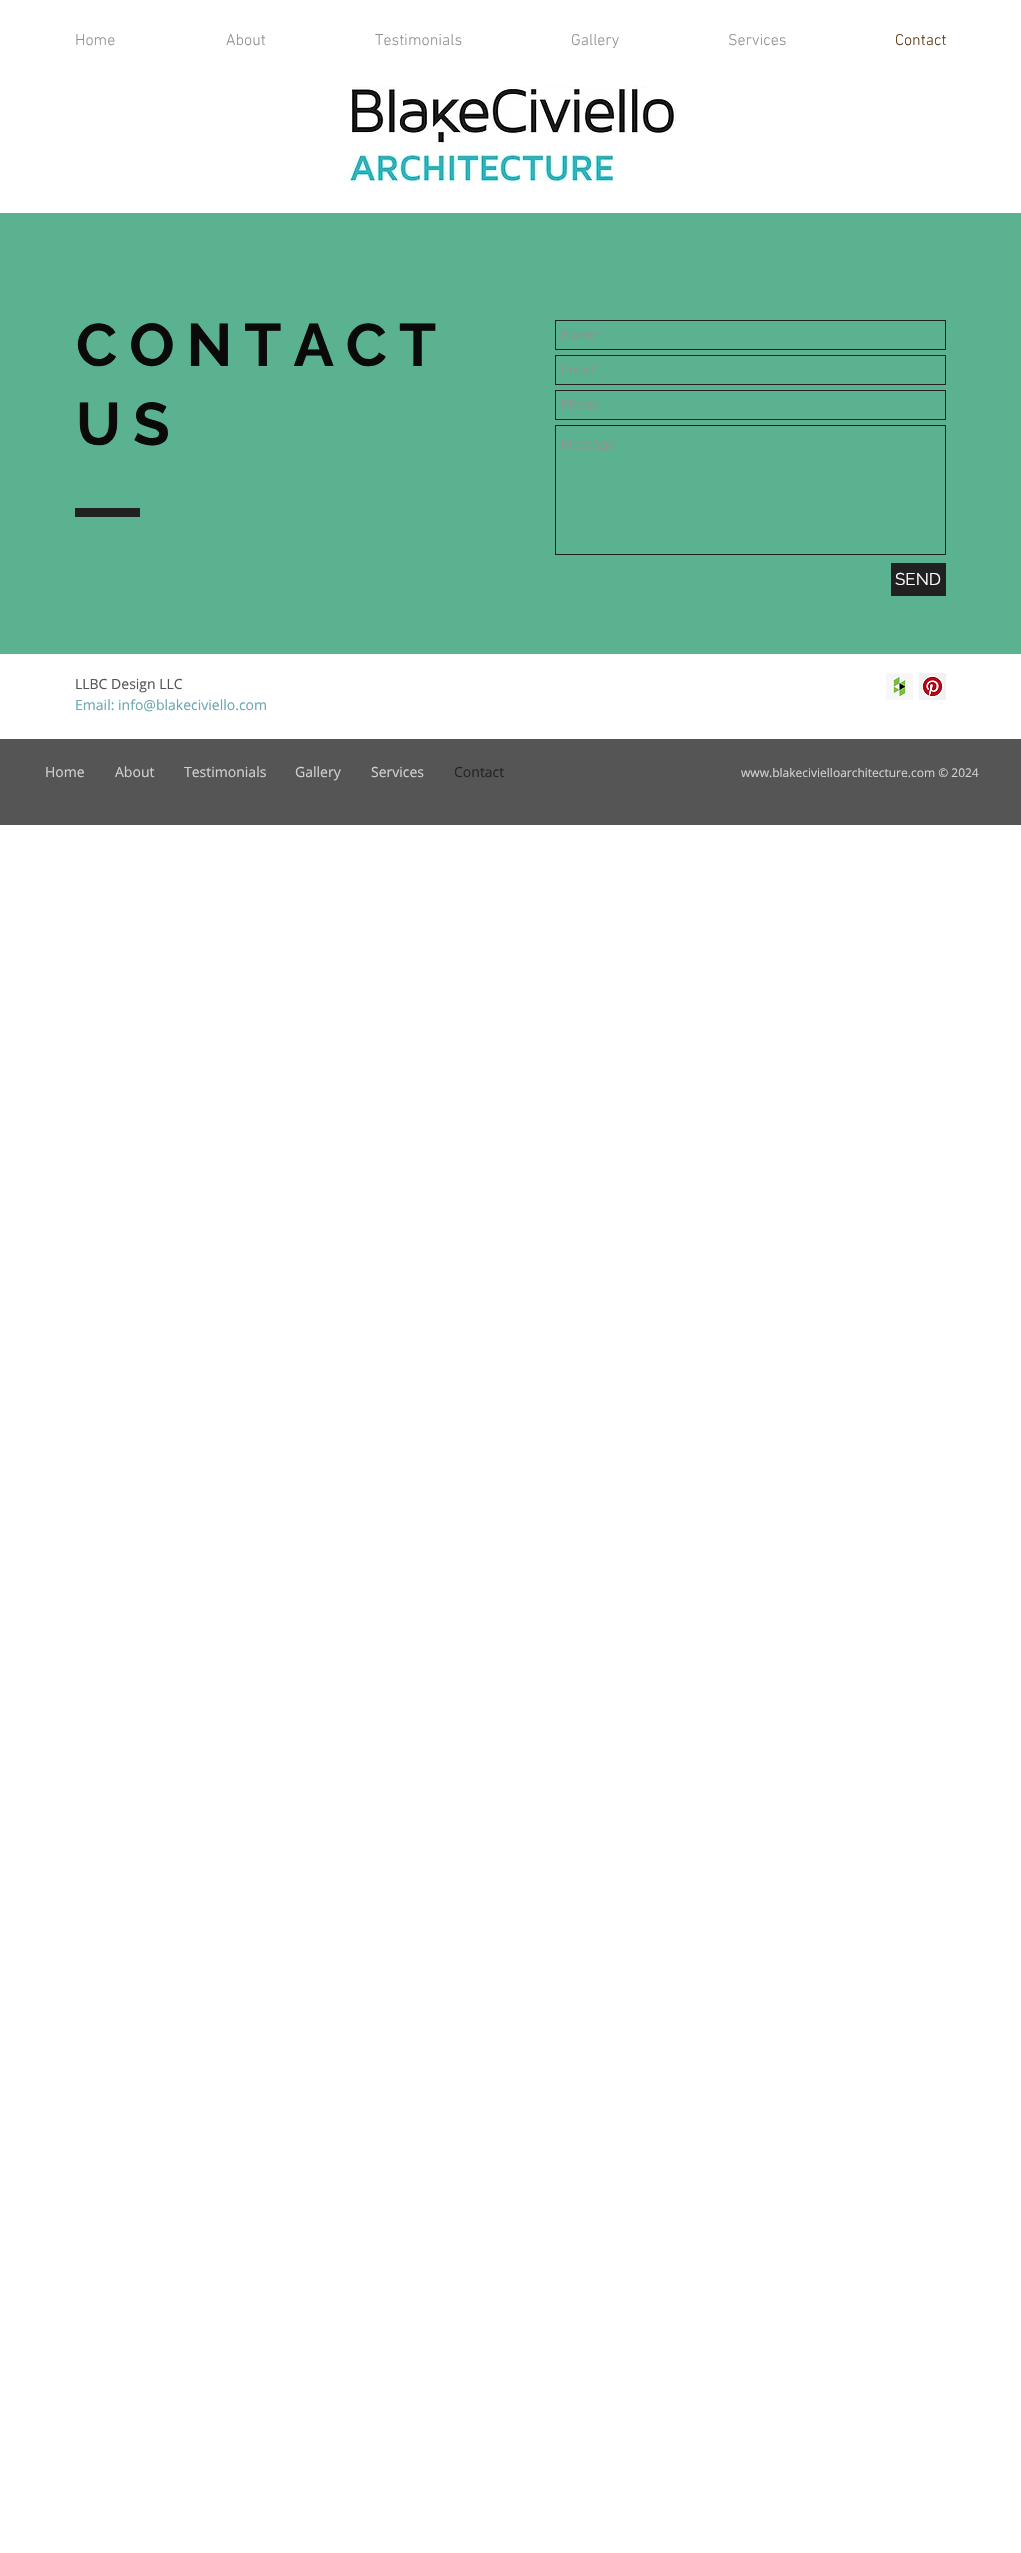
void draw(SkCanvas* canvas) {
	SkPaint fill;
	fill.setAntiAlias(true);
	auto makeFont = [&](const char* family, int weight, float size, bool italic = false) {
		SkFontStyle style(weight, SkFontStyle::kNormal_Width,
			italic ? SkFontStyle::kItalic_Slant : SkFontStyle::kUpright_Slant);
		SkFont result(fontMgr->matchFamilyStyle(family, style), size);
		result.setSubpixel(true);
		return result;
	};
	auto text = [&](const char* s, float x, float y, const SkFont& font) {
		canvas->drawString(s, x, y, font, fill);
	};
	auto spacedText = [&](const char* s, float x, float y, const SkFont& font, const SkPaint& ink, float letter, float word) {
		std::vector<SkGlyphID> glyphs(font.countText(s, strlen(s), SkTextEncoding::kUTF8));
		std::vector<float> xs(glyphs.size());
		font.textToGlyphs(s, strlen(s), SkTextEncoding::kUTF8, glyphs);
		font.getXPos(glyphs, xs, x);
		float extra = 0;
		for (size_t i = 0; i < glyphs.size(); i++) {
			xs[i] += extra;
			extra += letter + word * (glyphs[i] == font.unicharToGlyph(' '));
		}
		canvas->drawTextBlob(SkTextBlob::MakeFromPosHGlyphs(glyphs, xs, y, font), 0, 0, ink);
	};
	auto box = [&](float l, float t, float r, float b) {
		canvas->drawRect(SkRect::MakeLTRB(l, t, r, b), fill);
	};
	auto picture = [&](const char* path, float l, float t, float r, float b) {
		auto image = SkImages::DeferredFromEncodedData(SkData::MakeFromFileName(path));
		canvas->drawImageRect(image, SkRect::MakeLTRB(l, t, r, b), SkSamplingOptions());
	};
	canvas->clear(0xFFFFFFFF);
	picture("image0.png", 344, 86, 676, 183);
	fill.setColor(0xFF5BB290);
	box(0, 213, 1021, 654);
	fill.setStyle(SkPaint::kStroke_Style);
	fill.setStrokeWidth(1);
	fill.setColor(0xFF212121);
	canvas->drawRect(SkRect::MakeLTRB(555.5f, 320.5f, 945.5f, 349.5f), fill);
	canvas->drawRect(SkRect::MakeLTRB(555.5f, 355.5f, 945.5f, 384.5f), fill);
	canvas->drawRect(SkRect::MakeLTRB(555.5f, 390.5f, 945.5f, 419.5f), fill);
	canvas->drawRect(SkRect::MakeLTRB(555.5f, 425.5f, 945.5f, 554.5f), fill);
	fill.setStyle(SkPaint::kFill_Style);
	box(891, 563, 946, 596);
	box(75, 508, 140, 517);
	picture("image1.png", 886, 673, 913, 700);
	picture("image2.png", 919, 673, 946, 700);
	fill.setColor(0xFF555555);
	box(0, 739, 1021, 825);
	auto font1 = makeFont("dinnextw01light", 300, 16);
	fill.setColor(0xFF919191);
	text("Home", 75, 45, font1);
	text("About", 226, 45, font1);
	text("Testimonials", 375, 45, font1);
	text("Gallery", 571, 45, font1);
	text("Services", 728, 45, font1);
	fill.setColor(0xFF5E3C17);
	text("Contact", 895, 45, font1);
	auto font2 = makeFont("Raleway", 700, 60);
	fill.setColor(0xFF0A0A0A);
	spacedText("CONTACT", 76, 366, font2, fill, 12, 0);
	spacedText("US", 76, 445, font2, fill, 12, 0);
	auto font3 = makeFont("Raleway", 400, 13);
	fill.setColor(0xFF919191);
	text("Name *", 561, 339, font3);
	text("Email *", 561, 374, font3);
	text("Phone", 561, 409, font3);
	text("Message", 561, 449, font3);
	auto font4 = makeFont("Raleway", 400, 17);
	fill.setColor(0xFFFFFFFF);
	text("SEND", 895, 585, font4);
	auto font5 = makeFont("Open Sans", 400, 14);
	fill.setColor(0xFF555555);
	text("LLBC Design LLC", 75, 689, font5);
	fill.setColor(0xFF6BA8B2);
	text("Email: info@blakeciviello.com", 75, 710, font5);
	fill.setColor(0xFFD1D1D1);
	text("Home", 45, 777, font5);
	text("About", 115, 777, font5);
	text("Testimonials", 184, 777, font5);
	text("Gallery", 295, 777, font5);
	text("Services", 371, 777, font5);
	fill.setColor(0xFF242424);
	text("Contact", 454, 777, font5);
	auto font6 = makeFont("Open Sans", 400, 12);
	fill.setColor(0xFFD1D1D1);
	text("www.blakecivielloarchitecture.com © 2024", 741, 777, font6);
}
